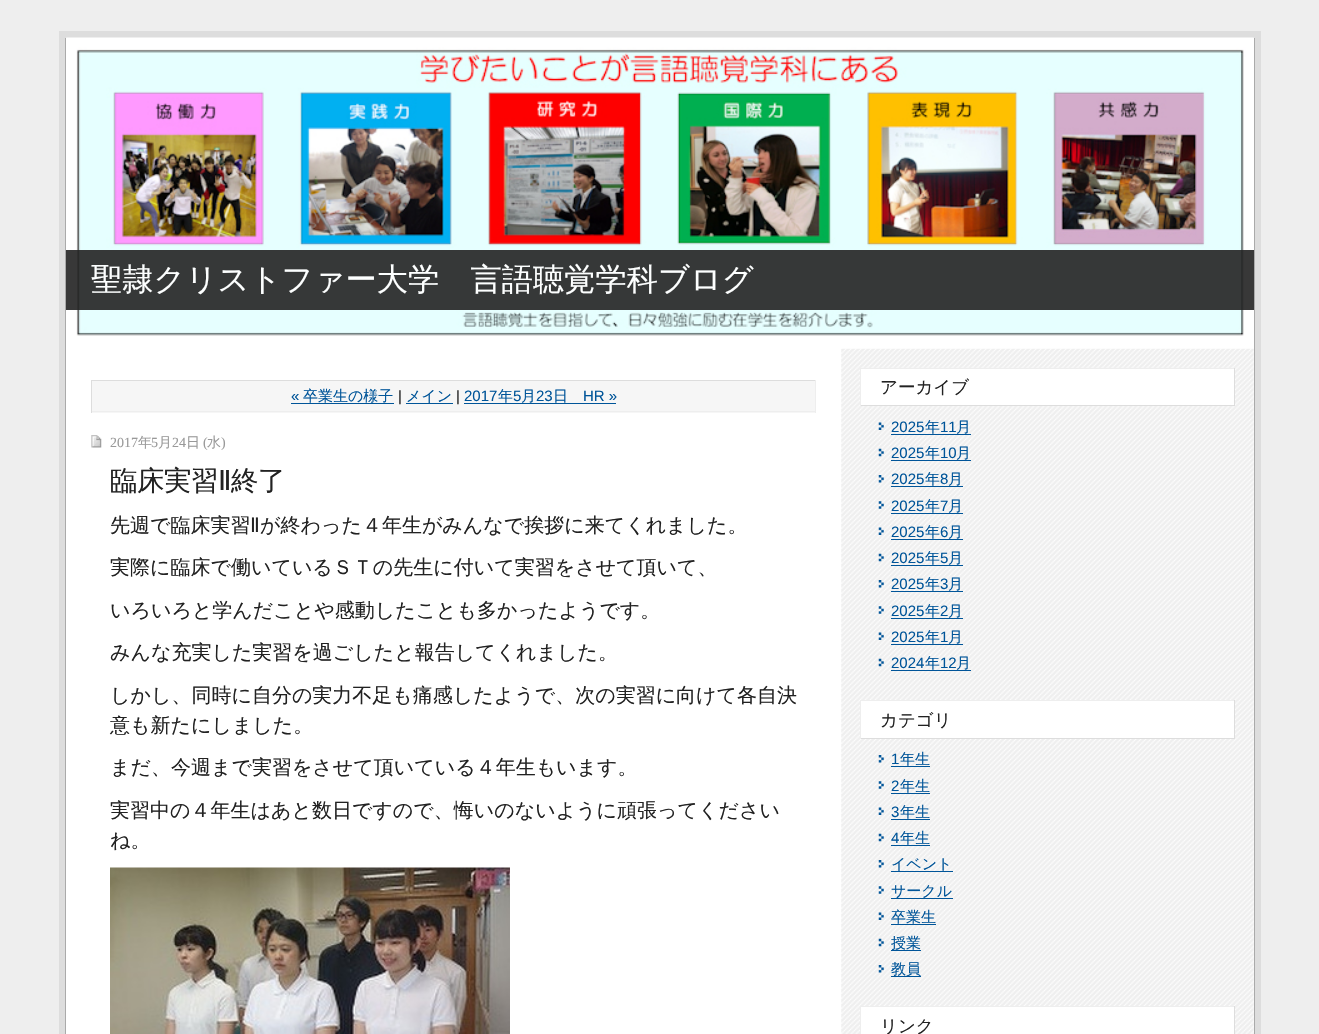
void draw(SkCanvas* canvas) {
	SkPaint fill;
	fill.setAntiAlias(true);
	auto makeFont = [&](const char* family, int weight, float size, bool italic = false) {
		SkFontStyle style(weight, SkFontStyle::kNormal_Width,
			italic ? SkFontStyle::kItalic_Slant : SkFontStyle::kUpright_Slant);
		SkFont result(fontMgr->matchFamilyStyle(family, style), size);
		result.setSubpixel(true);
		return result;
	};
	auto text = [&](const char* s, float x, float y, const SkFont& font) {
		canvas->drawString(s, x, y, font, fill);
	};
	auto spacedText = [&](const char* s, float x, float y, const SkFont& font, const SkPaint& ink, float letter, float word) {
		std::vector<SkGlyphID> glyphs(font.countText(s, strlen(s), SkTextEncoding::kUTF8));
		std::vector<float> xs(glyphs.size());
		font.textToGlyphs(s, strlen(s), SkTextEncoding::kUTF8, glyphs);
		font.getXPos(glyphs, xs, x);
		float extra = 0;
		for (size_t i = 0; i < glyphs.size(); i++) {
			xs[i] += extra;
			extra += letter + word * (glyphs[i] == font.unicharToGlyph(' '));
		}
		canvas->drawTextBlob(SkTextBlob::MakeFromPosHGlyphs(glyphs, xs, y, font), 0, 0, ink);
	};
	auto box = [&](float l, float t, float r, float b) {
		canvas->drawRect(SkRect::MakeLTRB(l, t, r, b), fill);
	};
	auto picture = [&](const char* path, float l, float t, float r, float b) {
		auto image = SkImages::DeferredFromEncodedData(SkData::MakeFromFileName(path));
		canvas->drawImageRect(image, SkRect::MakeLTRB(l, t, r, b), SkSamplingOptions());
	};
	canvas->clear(0xFFEEEEEE);
	fill.setColor(0xFFDDDDDD);
	box(59, 31, 1261, 1034);
	fill.setColor(0xFFFFFFFF);
	box(66, 38, 1254, 1034);
	fill.setColor(0xFFAAAAAA);
	box(1254, 38, 1255, 1034);
	box(65, 38, 66, 1034);
	picture("image0.png", 66, 37, 1254, 336);
	fill.setColor(0xE6222222);
	box(66, 250, 1254, 310);
	picture("image1.png", 841, 348, 1254, 1034);
	fill.setColor(0xFFF6F6F6);
	box(92, 381, 815, 413);
	fill.setColor(0xFFDDDDDD);
	box(91, 380, 816, 381);
	fill.setColor(0xFFEEEEEE);
	box(815, 380, 816, 413);
	box(91, 411, 816, 412);
	fill.setColor(0xFFDDDDDD);
	box(91, 380, 92, 413);
	fill.setColor(0xFF005599);
	box(291, 403, 394, 404);
	box(406, 403, 453, 404);
	box(464, 403, 616, 404);
	picture("image2.png", 91, 435, 102, 448);
	picture("image3.png", 110, 867, 510, 1034);
	fill.setColor(0xFFFFFFFF);
	box(861, 369, 1234, 405);
	fill.setColor(0xFFEEEEEE);
	box(860, 368, 1235, 369);
	fill.setColor(0xFFDDDDDD);
	box(1234, 368, 1235, 406);
	box(860, 405, 1235, 406);
	fill.setColor(0xFFEEEEEE);
	box(860, 368, 861, 406);
	picture("image4.png", 878, 422, 884, 430);
	fill.setColor(0xFF005599);
	box(891, 434, 971, 435);
	picture("image5.png", 878, 448, 884, 457);
	box(891, 460, 971, 461);
	picture("image6.png", 878, 475, 884, 483);
	box(891, 486, 963, 487);
	picture("image7.png", 878, 501, 884, 509);
	box(891, 513, 963, 514);
	picture("image4.png", 878, 527, 884, 535);
	box(891, 539, 963, 540);
	picture("image5.png", 878, 553, 884, 562);
	box(891, 565, 963, 566);
	picture("image6.png", 878, 580, 884, 588);
	box(891, 591, 963, 592);
	picture("image7.png", 878, 606, 884, 614);
	box(891, 618, 963, 619);
	picture("image4.png", 878, 632, 884, 640);
	box(891, 644, 963, 645);
	picture("image5.png", 878, 658, 884, 667);
	box(891, 670, 971, 671);
	fill.setColor(0xFFFFFFFF);
	box(861, 701, 1234, 738);
	fill.setColor(0xFFEEEEEE);
	box(860, 700, 1235, 701);
	fill.setColor(0xFFDDDDDD);
	box(1234, 700, 1235, 739);
	box(860, 738, 1235, 739);
	fill.setColor(0xFFEEEEEE);
	box(860, 700, 861, 739);
	picture("image6.png", 878, 755, 884, 763);
	fill.setColor(0xFF005599);
	box(891, 766, 930, 767);
	picture("image7.png", 878, 781, 884, 789);
	box(891, 793, 930, 794);
	picture("image4.png", 878, 807, 884, 815);
	box(891, 819, 930, 820);
	picture("image5.png", 878, 833, 884, 842);
	box(891, 845, 930, 846);
	picture("image6.png", 878, 860, 884, 868);
	box(891, 871, 953, 872);
	picture("image7.png", 878, 886, 884, 894);
	box(891, 898, 953, 899);
	picture("image4.png", 878, 912, 884, 920);
	box(891, 924, 936, 925);
	picture("image5.png", 878, 938, 884, 947);
	box(891, 950, 921, 951);
	picture("image6.png", 878, 965, 884, 973);
	box(891, 976, 921, 977);
	fill.setColor(0xFFFFFFFF);
	box(861, 1007, 1234, 1034);
	fill.setColor(0xFFEEEEEE);
	box(860, 1006, 1235, 1007);
	fill.setColor(0xFFDDDDDD);
	box(1234, 1006, 1235, 1034);
	fill.setColor(0xFFEEEEEE);
	box(860, 1006, 861, 1034);
	auto font1 = makeFont("WenQuanYi Zen Hei", 500, 31.25f);
	fill.setColor(0xFFFDFFFF);
	text("聖隷クリストファー大学　言語聴覚学科ブログ", 91, 290, font1);
	auto font2 = makeFont("Liberation Sans", 400, 15);
	fill.setColor(0xFF005599);
	text("«", 291, 401, font2);
	auto font3 = makeFont("WenQuanYi Zen Hei", 500, 15);
	text("卒業生の様子", 303, 401, font3);
	fill.setColor(0xFF222222);
	text("|", 398, 401, font2);
	fill.setColor(0xFF005599);
	text("メイン", 406, 401, font3);
	fill.setColor(0xFF222222);
	text("|", 456, 401, font2);
	fill.setColor(0xFF005599);
	text("2017", 464, 401, font2);
	text("年", 498, 401, font3);
	text("5", 513, 401, font2);
	text("月", 521, 401, font3);
	text("23", 536, 401, font2);
	text("日", 553, 401, font3);
	text("HR »", 583, 401, font2);
	auto font4 = makeFont("Liberation Serif", 400, 14);
	fill.setColor(0xFF999999);
	text("2017", 110, 447, font4);
	auto font5 = makeFont("WenQuanYi Zen Hei", 500, 14);
	text("年", 138, 447, font5);
	text("5", 151, 447, font4);
	text("月", 158, 447, font5);
	text("24", 172, 447, font4);
	text("日", 186, 447, font5);
	text("(", 203, 447, font4);
	text("水", 207, 447, font5);
	text(")", 221, 447, font4);
	auto font6 = makeFont("WenQuanYi Zen Hei", 500, 27.5f);
	fill.setColor(0xFF222222);
	spacedText("臨床実習", 110, 490, font6, fill, -0.5f, 0);
	auto font7 = makeFont("DejaVu Sans", 400, 27.5f);
	spacedText("Ⅱ", 218, 490, font7, fill, -0.5f, 0);
	spacedText("終了", 231, 490, font6, fill, -0.5f, 0);
	auto font8 = makeFont("WenQuanYi Zen Hei", 500, 20);
	text("先週で臨床実習", 110, 532, font8);
	auto font9 = makeFont("DejaVu Sans", 400, 20);
	text("Ⅱ", 250, 532, font9);
	text("が終わった４年生がみんなで挨拶に来てくれました。", 260, 532, font8);
	text("実際に臨床で働いているＳＴの先生に付いて実習をさせて頂いて、", 110, 574, font8);
	text("いろいろと学んだことや感動したことも多かったようです。", 110, 617, font8);
	text("みんな充実した実習を過ごしたと報告してくれました。", 110, 659, font8);
	text("しかし、同時に自分の実力不足も痛感したようで、次の実習に向けて各自決", 110, 702, font8);
	text("意も新たにしました。", 110, 732, font8);
	text("まだ、今週まで実習をさせて頂いている４年生もいます。", 110, 774, font8);
	text("実習中の４年生はあと数日ですので、悔いのないように頑張ってください", 110, 817, font8);
	text("ね。", 110, 847, font8);
	auto font10 = makeFont("WenQuanYi Zen Hei", 500, 17.5f);
	text("アーカイブ", 880, 393, font10);
	fill.setColor(0xFF005599);
	text("2025", 891, 432, font2);
	text("年", 925, 432, font3);
	text("11", 940, 432, font2);
	text("月", 956, 432, font3);
	text("2025", 891, 458, font2);
	text("年", 925, 458, font3);
	text("10", 940, 458, font2);
	text("月", 956, 458, font3);
	text("2025", 891, 484, font2);
	text("年", 925, 484, font3);
	text("8", 940, 484, font2);
	text("月", 948, 484, font3);
	text("2025", 891, 511, font2);
	text("年", 925, 511, font3);
	text("7", 940, 511, font2);
	text("月", 948, 511, font3);
	text("2025", 891, 537, font2);
	text("年", 925, 537, font3);
	text("6", 940, 537, font2);
	text("月", 948, 537, font3);
	text("2025", 891, 563, font2);
	text("年", 925, 563, font3);
	text("5", 940, 563, font2);
	text("月", 948, 563, font3);
	text("2025", 891, 589, font2);
	text("年", 925, 589, font3);
	text("3", 940, 589, font2);
	text("月", 948, 589, font3);
	text("2025", 891, 616, font2);
	text("年", 925, 616, font3);
	text("2", 940, 616, font2);
	text("月", 948, 616, font3);
	text("2025", 891, 642, font2);
	text("年", 925, 642, font3);
	text("1", 940, 642, font2);
	text("月", 948, 642, font3);
	text("2024", 891, 668, font2);
	text("年", 925, 668, font3);
	text("12", 940, 668, font2);
	text("月", 956, 668, font3);
	fill.setColor(0xFF222222);
	text("カテゴリ", 880, 726, font10);
	fill.setColor(0xFF005599);
	text("1", 891, 764, font2);
	text("年生", 900, 764, font3);
	text("2", 891, 791, font2);
	text("年生", 900, 791, font3);
	text("3", 891, 817, font2);
	text("年生", 900, 817, font3);
	text("4", 891, 843, font2);
	text("年生", 900, 843, font3);
	text("イベント", 891, 869, font3);
	text("サークル", 891, 896, font3);
	text("卒業生", 891, 922, font3);
	text("授業", 891, 948, font3);
	text("教員", 891, 974, font3);
	fill.setColor(0xFF222222);
	text("リンク", 880, 1032, font10);
}
